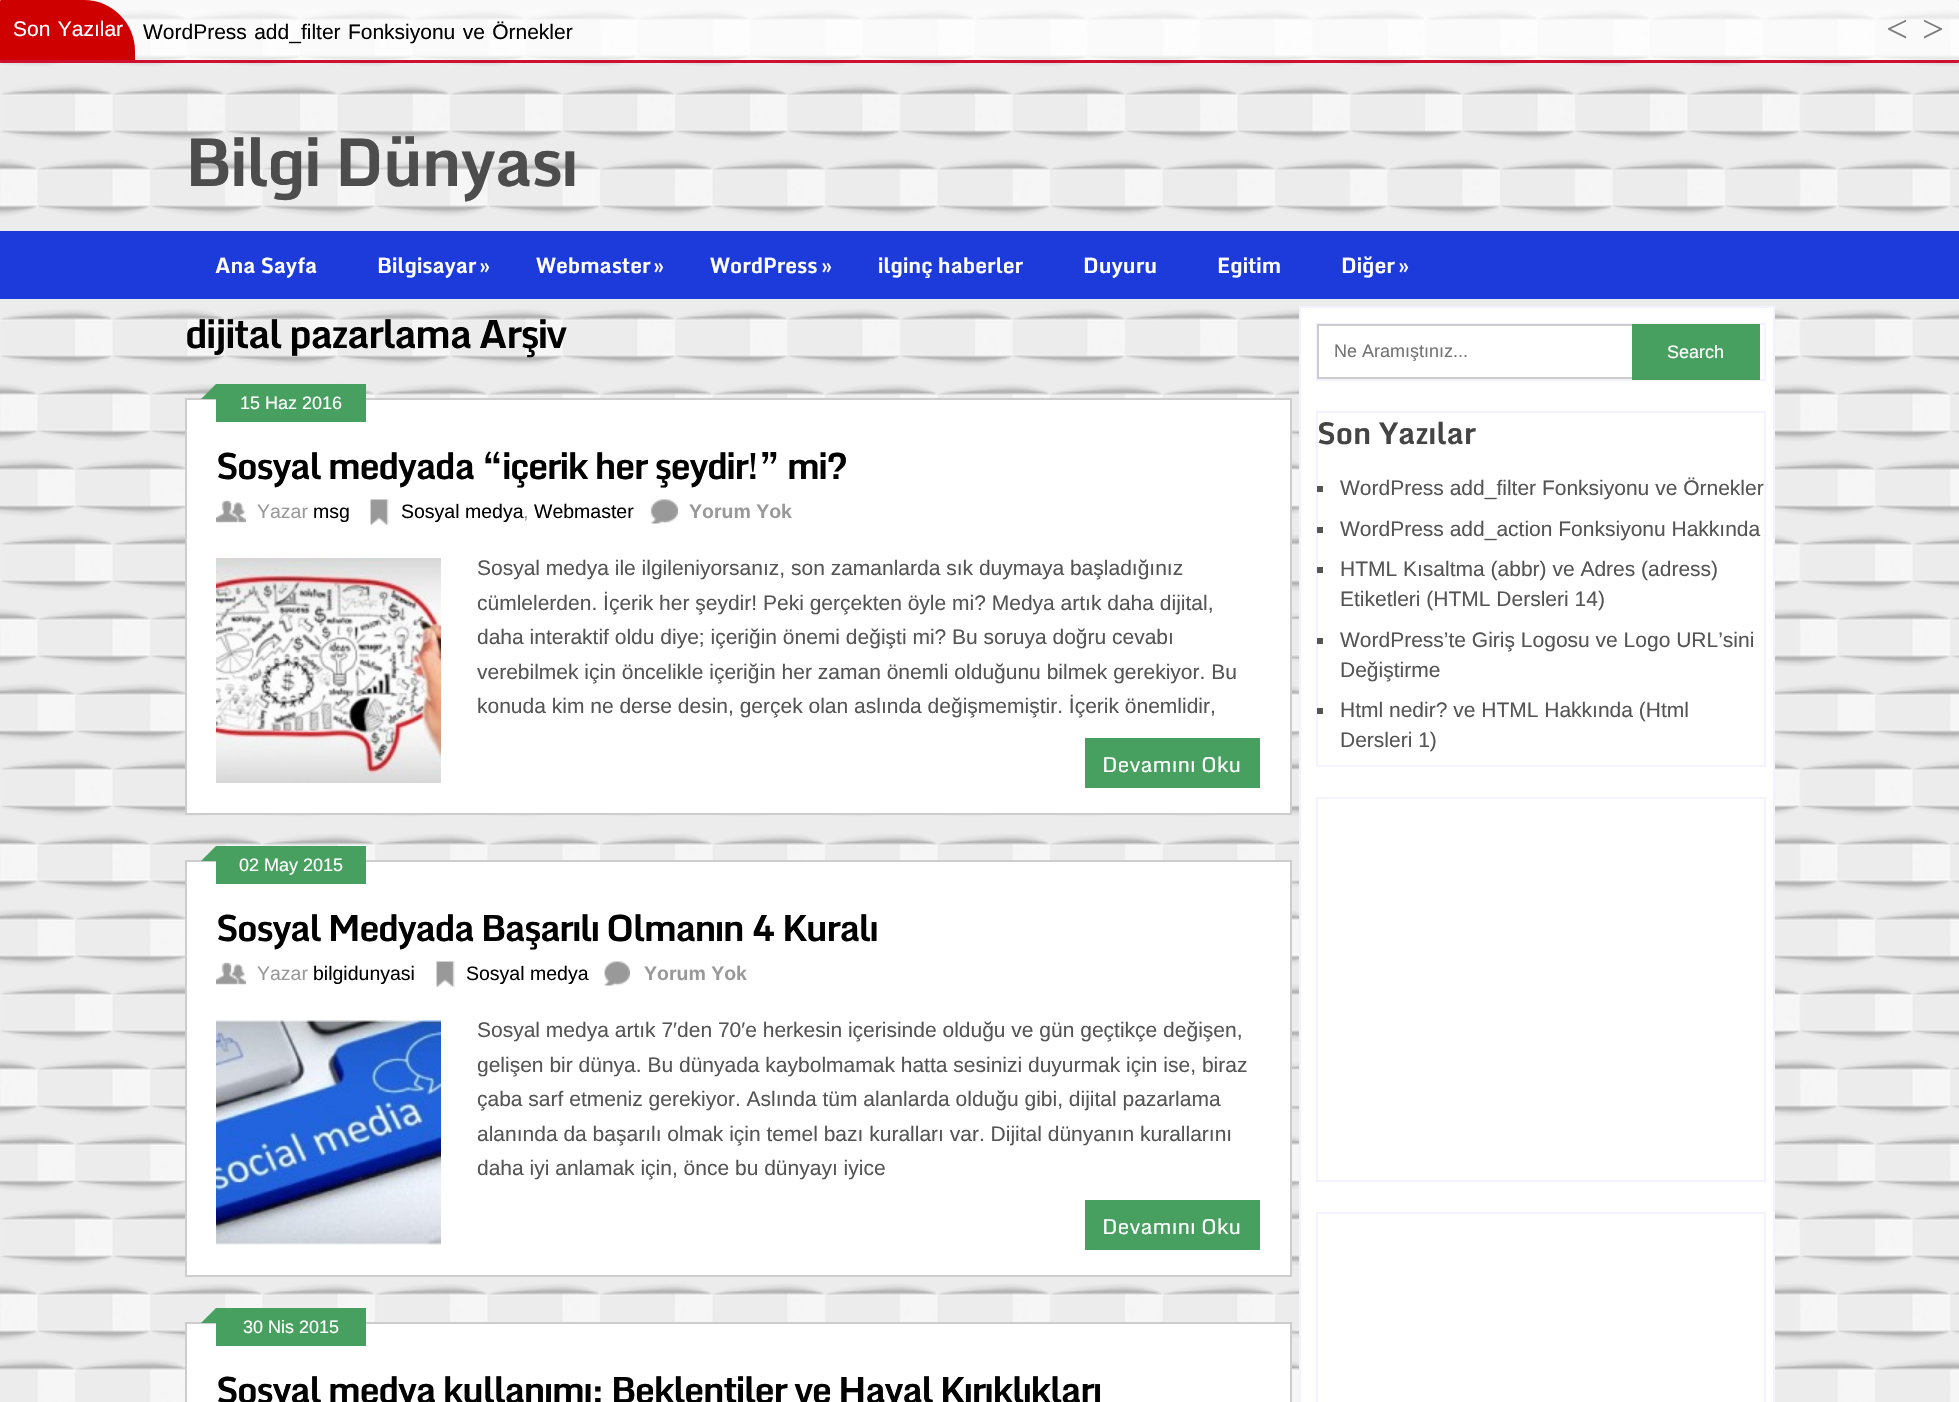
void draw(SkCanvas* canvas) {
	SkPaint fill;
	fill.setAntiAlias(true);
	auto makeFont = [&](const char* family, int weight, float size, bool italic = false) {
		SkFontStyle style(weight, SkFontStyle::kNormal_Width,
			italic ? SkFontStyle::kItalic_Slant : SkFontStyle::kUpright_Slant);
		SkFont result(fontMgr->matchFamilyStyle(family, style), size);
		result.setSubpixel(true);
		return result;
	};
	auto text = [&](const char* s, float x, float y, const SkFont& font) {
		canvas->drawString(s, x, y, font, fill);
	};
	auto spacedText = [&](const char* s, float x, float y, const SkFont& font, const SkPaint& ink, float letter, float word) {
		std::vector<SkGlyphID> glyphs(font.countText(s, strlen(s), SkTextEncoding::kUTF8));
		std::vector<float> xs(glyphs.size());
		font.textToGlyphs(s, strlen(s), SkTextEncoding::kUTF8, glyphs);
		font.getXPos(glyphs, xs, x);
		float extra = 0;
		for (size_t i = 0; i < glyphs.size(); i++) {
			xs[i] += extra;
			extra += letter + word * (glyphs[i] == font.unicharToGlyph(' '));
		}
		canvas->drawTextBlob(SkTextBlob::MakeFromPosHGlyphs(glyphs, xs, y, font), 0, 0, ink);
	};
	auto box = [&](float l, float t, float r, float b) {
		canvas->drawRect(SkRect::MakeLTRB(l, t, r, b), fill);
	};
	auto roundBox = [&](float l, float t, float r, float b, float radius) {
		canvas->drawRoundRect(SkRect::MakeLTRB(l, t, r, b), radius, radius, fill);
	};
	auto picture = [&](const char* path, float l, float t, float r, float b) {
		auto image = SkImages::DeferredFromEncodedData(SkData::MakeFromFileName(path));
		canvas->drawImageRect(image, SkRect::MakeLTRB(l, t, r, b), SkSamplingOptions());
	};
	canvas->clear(0xFFEBEBEB);
	picture("image0.png", 0, 9, 1959, 1402);
	fill.setColor(0xB3FFFFFF);
	roundBox(0, 0, 1959, 63, 1.5f);
	fill.setColor(0xFFCE0000);
	canvas->drawPath(SkPathBuilder().moveTo(1.5f, 0).lineTo(84, 0).cubicTo(112, 0, 135, 23, 135, 51).lineTo(135, 63).lineTo(1.5f, 63).cubicTo(0.5f, 63, 0, 62.5f, 0, 61.5f).lineTo(0, 1.5f).cubicTo(0, 0.5f, 0.5f, 0, 1.5f, 0).close().detach(), fill);
	fill.setColor(0xFFCE1031);
	canvas->drawPath(SkPathBuilder().moveTo(0, 60).lineTo(1959, 60).lineTo(1959, 61.5f).cubicTo(1959, 62.5f, 1958.5f, 63, 1957.5f, 63).lineTo(1.5f, 63).cubicTo(0.5f, 63, 0, 62.5f, 0, 61.5f).close().detach(), fill);
	fill.setColor(0xFF1C3BDA);
	box(0, 231, 1959, 299);
	fill.setColor(0xFFFFFFFF);
	canvas->drawRect(SkRect::MakeLTRB(186, 399, 1291, 814), fill);
	fill.setStyle(SkPaint::kStroke_Style);
	fill.setStrokeWidth(2);
	fill.setColor(0xFFCDCDCD);
	canvas->drawRect(SkRect::MakeLTRB(186, 399, 1291, 814), fill);
	fill.setStyle(SkPaint::kFill_Style);
	fill.setColor(0xFF48A060);
	box(216, 384, 366, 422);
	canvas->drawPath(SkPathBuilder().moveTo(216, 399).lineTo(201, 399).lineTo(216, 384).close().detach(), fill);
	picture("image1.png", 216, 500, 246, 523);
	picture("image2.png", 370, 499, 389, 525);
	picture("image3.png", 650, 499, 678, 524);
	picture("image4.png", 216, 558, 441, 783);
	box(1085, 738, 1260, 788);
	fill.setColor(0xFFFFFFFF);
	canvas->drawRect(SkRect::MakeLTRB(186, 861, 1291, 1276), fill);
	fill.setStyle(SkPaint::kStroke_Style);
	fill.setColor(0xFFCDCDCD);
	canvas->drawRect(SkRect::MakeLTRB(186, 861, 1291, 1276), fill);
	fill.setStyle(SkPaint::kFill_Style);
	fill.setColor(0xFF48A060);
	box(216, 846, 366, 884);
	canvas->drawPath(SkPathBuilder().moveTo(216, 861).lineTo(201, 861).lineTo(216, 846).close().detach(), fill);
	picture("image1.png", 216, 962, 246, 985);
	picture("image2.png", 436, 961, 455, 987);
	picture("image5.png", 604, 961, 630, 986);
	picture("image6.png", 216, 1020, 441, 1245);
	box(1085, 1200, 1260, 1250);
	fill.setColor(0xFFFFFFFF);
	canvas->drawRect(SkRect::MakeLTRB(186, 1323, 1291, 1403), fill);
	fill.setStyle(SkPaint::kStroke_Style);
	fill.setColor(0xFFCDCDCD);
	canvas->drawRect(SkRect::MakeLTRB(186, 1323, 1291, 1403), fill);
	fill.setStyle(SkPaint::kFill_Style);
	fill.setColor(0xFF48A060);
	box(216, 1308, 366, 1346);
	canvas->drawPath(SkPathBuilder().moveTo(216, 1323).lineTo(201, 1323).lineTo(216, 1308).close().detach(), fill);
	fill.setColor(0xFFFFFFFF);
	canvas->drawRect(SkRect::MakeLTRB(1300, 307, 1774, 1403), fill);
	fill.setStyle(SkPaint::kStroke_Style);
	fill.setColor(0xFFF3F3FF);
	canvas->drawRect(SkRect::MakeLTRB(1300, 307, 1774, 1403), fill);
	canvas->drawRect(SkRect::MakeLTRB(1317, 324, 1765, 380), fill);
	fill.setStyle(SkPaint::kFill_Style);
	fill.setColor(0xFFCCCCCC);
	box(1317, 324, 1632, 326);
	box(1317, 377, 1632, 379);
	box(1317, 324, 1319, 378);
	fill.setColor(0xFF48A060);
	box(1632, 324, 1760, 380);
	fill.setStyle(SkPaint::kStroke_Style);
	fill.setColor(0xFFF3F3FF);
	canvas->drawRect(SkRect::MakeLTRB(1317, 412, 1765, 766), fill);
	fill.setStyle(SkPaint::kFill_Style);
	fill.setColor(0xFF555555);
	box(1317, 486, 1323, 492);
	box(1317, 527, 1323, 533);
	box(1317, 567, 1323, 573);
	box(1317, 638, 1323, 644);
	box(1317, 708, 1323, 714);
	fill.setStyle(SkPaint::kStroke_Style);
	fill.setColor(0xFFF3F3FF);
	canvas->drawRect(SkRect::MakeLTRB(1317, 798, 1765, 1181), fill);
	canvas->drawRect(SkRect::MakeLTRB(1317, 1213, 1765, 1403), fill);
	auto font1 = makeFont("Liberation Sans", 400, 21);
	fill.setStyle(SkPaint::kFill_Style);
	fill.setColor(0xFFFFFFFF);
	spacedText("Son Yazılar", 13, 36, font1, fill, 0, 1.5f);
	fill.setColor(0xFF000000);
	spacedText("WordPress add_filter Fonksiyonu ve Örnekler", 143, 39, font1, fill, 0, 1.5f);
	auto font2 = makeFont("Liberation Serif", 400, 39);
	fill.setColor(0xFF7D7B7B);
	text("<", 1886, 42, font2);
	text(">", 1922, 42, font2);
	auto font3 = makeFont("Monda", 700, 66);
	fill.setColor(0xFF4D4D4D);
	spacedText("Bilgi Dünyası", 185, 186, font3, fill, -1.5f, 0);
	auto font4 = makeFont("Monda", 700, 21);
	fill.setColor(0xFFFFFFFF);
	text("Ana Sayfa", 215, 273, font4);
	text("Bilgisayar", 377, 273, font4);
	text("»", 479, 273, font4);
	text("Webmaster", 536, 273, font4);
	text("»", 653, 273, font4);
	text("WordPress", 710, 273, font4);
	text("»", 821, 273, font4);
	text("ilginç haberler", 878, 273, font4);
	text("Duyuru", 1083, 273, font4);
	text("Egitim", 1217, 273, font4);
	text("Diğer", 1341, 273, font4);
	text("»", 1398, 273, font4);
	auto font5 = makeFont("Monda", 700, 39);
	fill.setColor(0xFF000000);
	spacedText("dijital pazarlama Arşiv", 185, 348, font5, fill, -1.5f, 0);
	auto font6 = makeFont("Liberation Sans", 400, 18);
	fill.setColor(0xFFFFFFFF);
	text("15 Haz 2016", 240, 409, font6);
	auto font7 = makeFont("Monda", 700, 36);
	fill.setColor(0xFF000000);
	spacedText("Sosyal medyada “içerik her şeydir!” mi?", 216, 479, font7, fill, -1.5f, 0);
	auto font8 = makeFont("Liberation Sans", 400, 19.5f);
	fill.setColor(0xFF999999);
	text("Yazar", 257, 518, font8);
	fill.setColor(0xFF000000);
	text("msg", 313, 518, font8);
	text("Sosyal medya", 401, 518, font8);
	fill.setColor(0xFF999999);
	text(",", 523, 518, font8);
	fill.setColor(0xFF000000);
	text("Webmaster", 534, 518, font8);
	auto font9 = makeFont("Liberation Sans", 700, 19.5f);
	fill.setColor(0xFF999999);
	text("Yorum Yok", 689, 518, font9);
	fill.setColor(0xFF555555);
	text("Sosyal medya ile ilgileniyorsanız, son zamanlarda sık duymaya başladığınız", 477, 575, font1);
	text("cümlelerden. İçerik her şeydir! Peki gerçekten öyle mi? Medya artık daha dijital,", 477, 610, font1);
	text("daha interaktif oldu diye; içeriğin önemi değişti mi? Bu soruya doğru cevabı", 477, 644, font1);
	text("verebilmek için öncelikle içeriğin her zaman önemli olduğunu bilmek gerekiyor. Bu", 477, 679, font1);
	text("konuda kim ne derse desin, gerçek olan aslında değişmemiştir. İçerik önemlidir,", 477, 713, font1);
	auto font10 = makeFont("Monda", 400, 21);
	fill.setColor(0xFFFFFFFF);
	text("Devamını Oku", 1102, 772, font10);
	text("02 May 2015", 239, 871, font6);
	fill.setColor(0xFF000000);
	spacedText("Sosyal Medyada Başarılı Olmanın 4 Kuralı", 216, 941, font7, fill, -1.5f, 0);
	fill.setColor(0xFF999999);
	text("Yazar", 257, 980, font8);
	fill.setColor(0xFF000000);
	text("bilgidunyasi", 313, 980, font8);
	text("Sosyal medya", 466, 980, font8);
	fill.setColor(0xFF999999);
	text("Yorum Yok", 644, 980, font9);
	fill.setColor(0xFF555555);
	text("Sosyal medya artık 7′den 70′e herkesin içerisinde olduğu ve gün geçtikçe değişen,", 477, 1037, font1);
	text("gelişen bir dünya. Bu dünyada kaybolmamak hatta sesinizi duyurmak için ise, biraz", 477, 1072, font1);
	text("çaba sarf etmeniz gerekiyor. Aslında tüm alanlarda olduğu gibi, dijital pazarlama", 477, 1106, font1);
	text("alanında da başarılı olmak için temel bazı kuralları var. Dijital dünyanın kurallarını", 477, 1141, font1);
	text("daha iyi anlamak için, önce bu dünyayı iyice", 477, 1175, font1);
	fill.setColor(0xFFFFFFFF);
	text("Devamını Oku", 1102, 1234, font10);
	text("30 Nis 2015", 243, 1333, font6);
	fill.setColor(0xFF000000);
	spacedText("Sosyal medya kullanımı: Beklentiler ve Hayal Kırıklıkları", 216, 1403, font7, fill, -1.5f, 0);
	fill.setColor(0xFF757575);
	text("Ne Aramıştınız...", 1334, 357, font6);
	fill.setColor(0xFFFFFFFF);
	text("Search", 1667, 358, font6);
	auto font11 = makeFont("Monda", 700, 30);
	fill.setColor(0xFF444444);
	text("Son Yazılar", 1317, 444, font11);
	fill.setColor(0xFF555555);
	text("WordPress add_filter Fonksiyonu ve Örnekler", 1340, 495, font1);
	text("WordPress add_action Fonksiyonu Hakkında", 1340, 536, font1);
	text("HTML Kısaltma (abbr) ve Adres (adress)", 1340, 576, font1);
	text("Etiketleri (HTML Dersleri 14)", 1340, 606, font1);
	text("WordPress’te Giriş Logosu ve Logo URL’sini", 1340, 647, font1);
	text("Değiştirme", 1340, 677, font1);
	text("Html nedir? ve HTML Hakkında (Html", 1340, 717, font1);
	text("Dersleri 1)", 1340, 747, font1);
}
